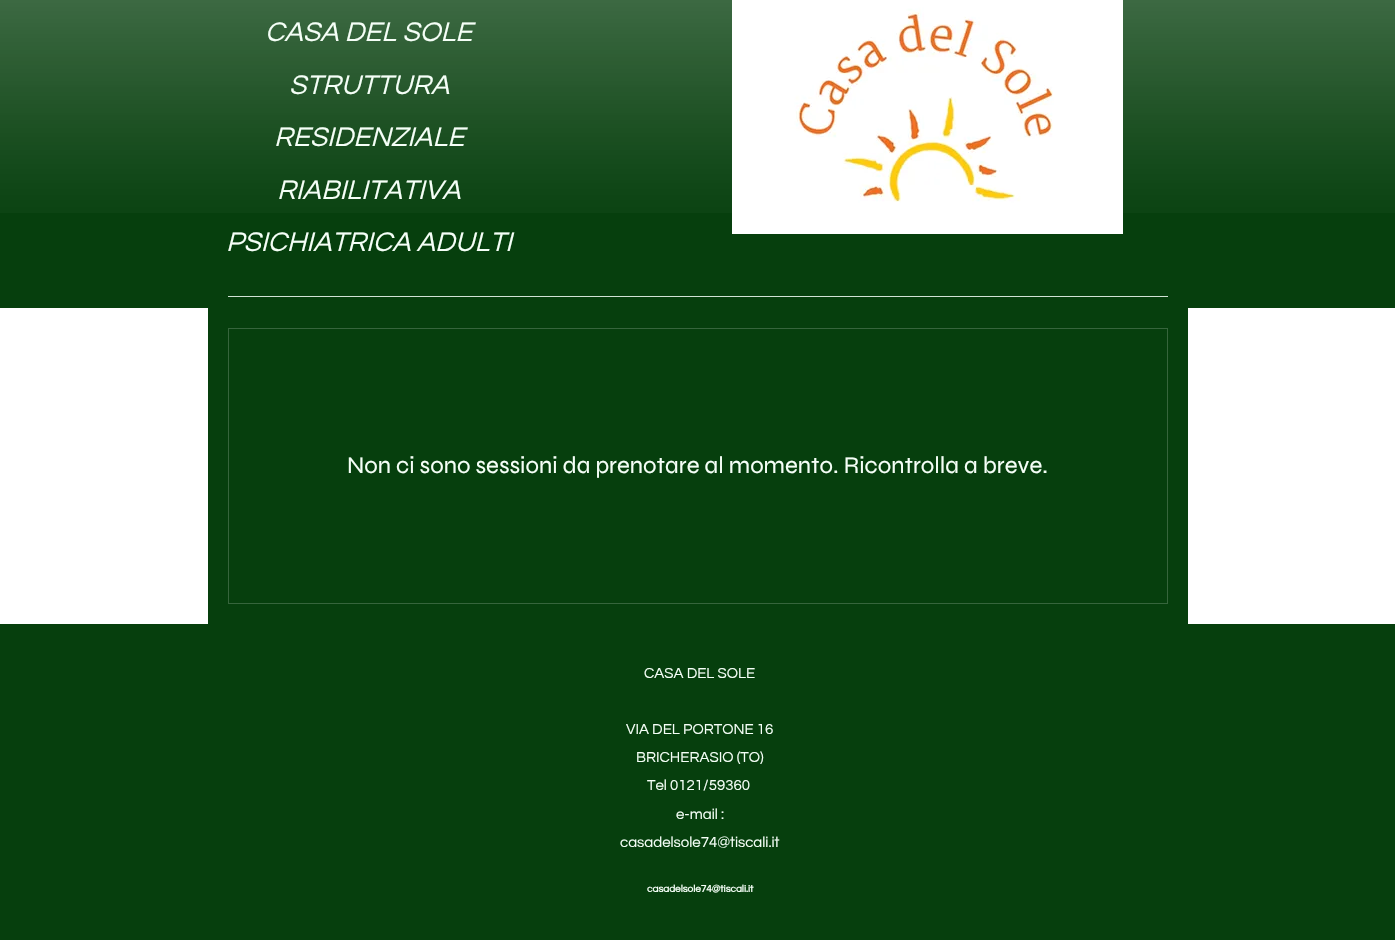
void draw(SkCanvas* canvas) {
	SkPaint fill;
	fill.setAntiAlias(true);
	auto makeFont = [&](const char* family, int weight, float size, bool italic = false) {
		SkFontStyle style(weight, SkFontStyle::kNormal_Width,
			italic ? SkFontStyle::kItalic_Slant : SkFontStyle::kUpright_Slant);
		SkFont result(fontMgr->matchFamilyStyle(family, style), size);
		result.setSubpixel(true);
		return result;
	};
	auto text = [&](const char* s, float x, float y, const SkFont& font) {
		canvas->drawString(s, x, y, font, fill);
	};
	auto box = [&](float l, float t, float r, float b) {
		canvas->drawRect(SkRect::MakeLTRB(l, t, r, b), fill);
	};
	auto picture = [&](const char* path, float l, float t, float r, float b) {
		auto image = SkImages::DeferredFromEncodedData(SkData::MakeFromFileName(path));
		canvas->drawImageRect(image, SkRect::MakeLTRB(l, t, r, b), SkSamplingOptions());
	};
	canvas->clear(0xFFFFFFFF);
	fill.setColor(0xFF063F0D);
	box(0, 0, 1395, 308);
	picture("image0.png", 0, 0, 1395, 213);
	picture("image1.png", 732, 0, 1123, 234);
	fill.setColor(0xFFD1E2D4);
	box(228, 296, 1168, 297);
	fill.setColor(0xFF063F0D);
	box(208, 308, 1188, 624);
	fill.setStyle(SkPaint::kStroke_Style);
	fill.setStrokeWidth(1);
	fill.setColor(0xFF36653C);
	canvas->drawRect(SkRect::MakeLTRB(228.5f, 328.5f, 1167.5f, 603.5f), fill);
	fill.setStyle(SkPaint::kFill_Style);
	fill.setColor(0xFF063F0D);
	box(0, 624, 1395, 940);
	auto font1 = makeFont("Questrial", 400, 28, true);
	fill.setColor(0xFFF5FFF7);
	text("CASA DEL SOLE", 265, 41, font1);
	text("STRUTTURA", 289, 94, font1);
	text("RESIDENZIALE", 274, 146, font1);
	text("RIABILITATIVA", 277, 199, font1);
	text("PSICHIATRICA ADULTI", 226, 251, font1);
	auto font2 = makeFont("Syne", 400, 24);
	text("Non ci sono sessioni da prenotare al momento. Ricontrolla a breve.", 347, 473, font2);
	auto font3 = makeFont("Questrial", 400, 15);
	text("CASA DEL SOLE", 644, 678, font3);
	text("VIA DEL PORTONE 16", 626, 734, font3);
	text("BRICHERASIO (TO)", 636, 762, font3);
	text("Tel 0121/59360", 647, 790, font3);
	text("e-mail :", 676, 819, font3);
	text("casadelsole74@tiscali.it", 620, 847, font3);
	auto font4 = makeFont("Questrial", 700, 10);
	text("casadelsole74@tiscali.it", 647, 892, font4);
}
